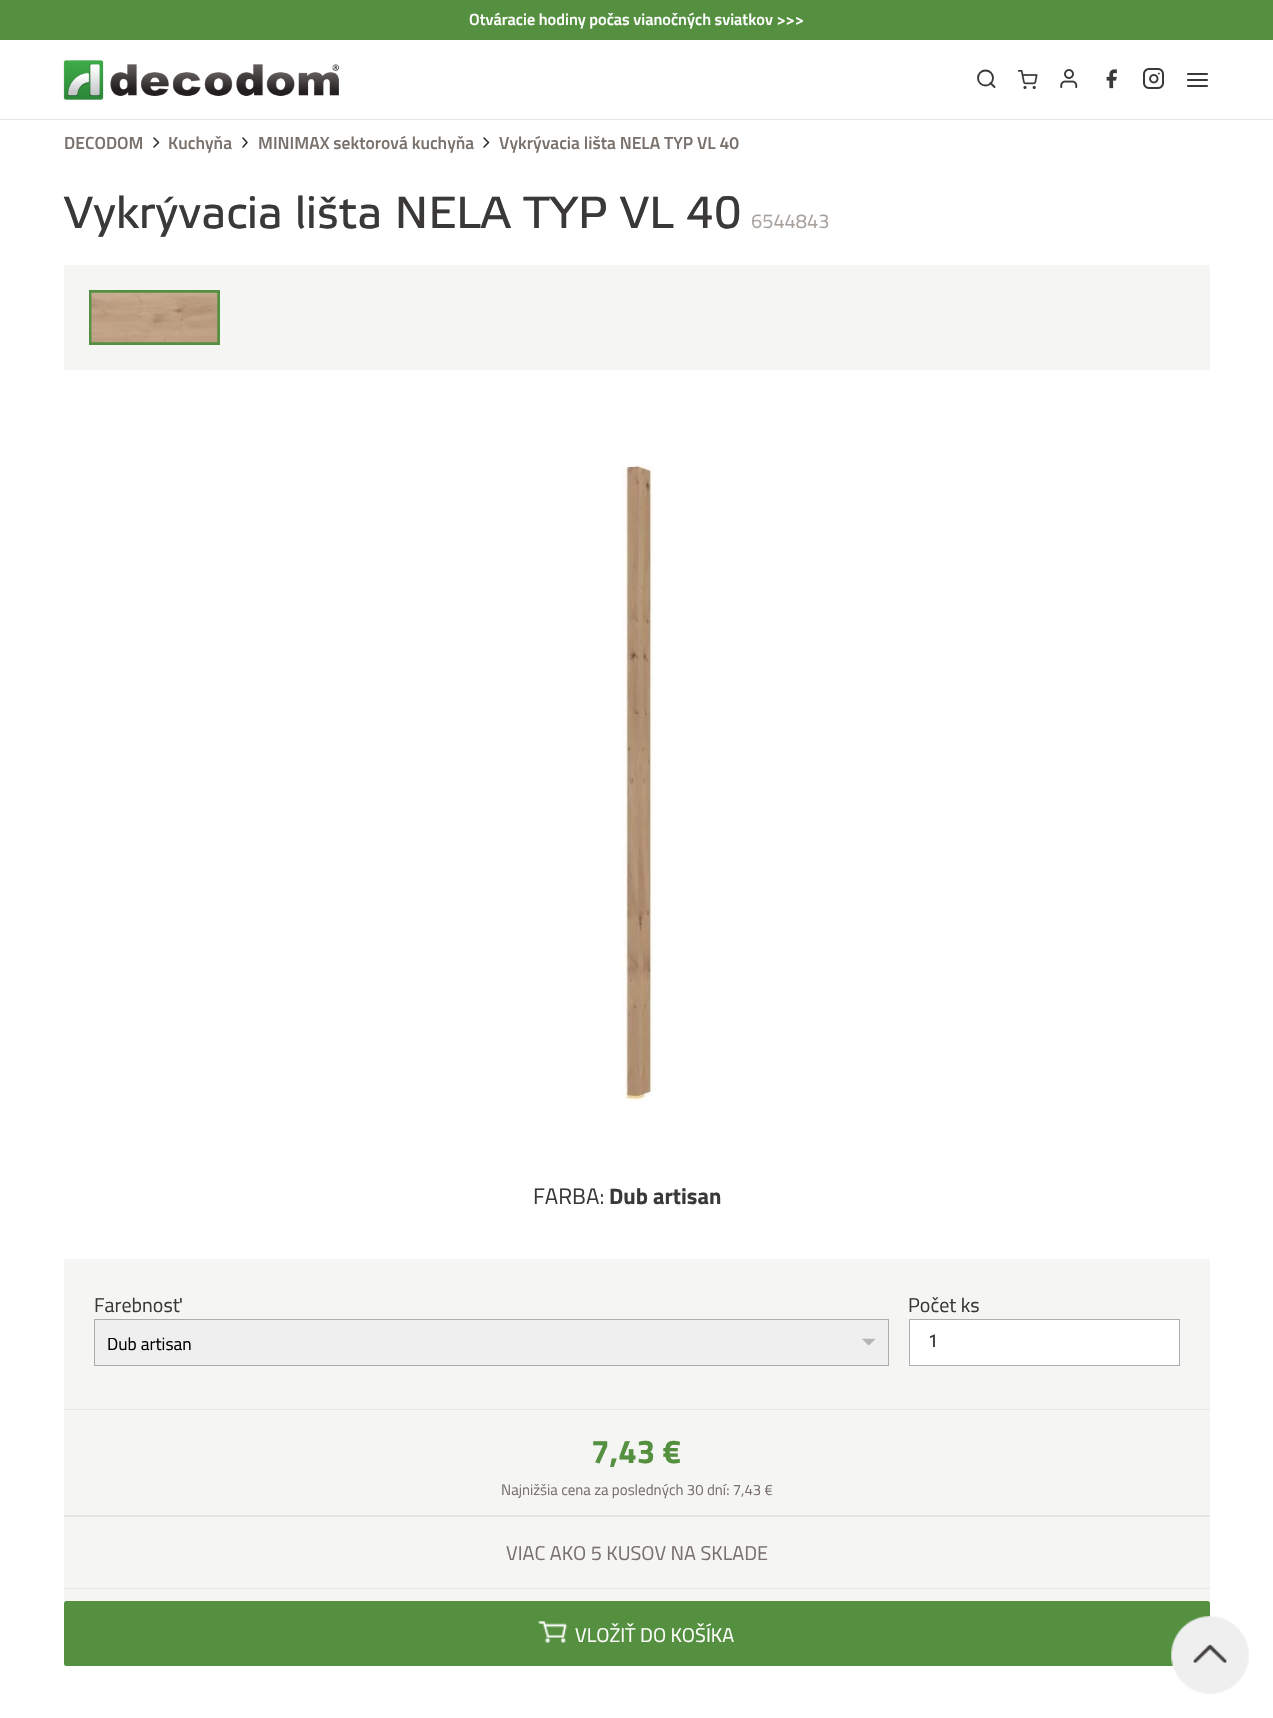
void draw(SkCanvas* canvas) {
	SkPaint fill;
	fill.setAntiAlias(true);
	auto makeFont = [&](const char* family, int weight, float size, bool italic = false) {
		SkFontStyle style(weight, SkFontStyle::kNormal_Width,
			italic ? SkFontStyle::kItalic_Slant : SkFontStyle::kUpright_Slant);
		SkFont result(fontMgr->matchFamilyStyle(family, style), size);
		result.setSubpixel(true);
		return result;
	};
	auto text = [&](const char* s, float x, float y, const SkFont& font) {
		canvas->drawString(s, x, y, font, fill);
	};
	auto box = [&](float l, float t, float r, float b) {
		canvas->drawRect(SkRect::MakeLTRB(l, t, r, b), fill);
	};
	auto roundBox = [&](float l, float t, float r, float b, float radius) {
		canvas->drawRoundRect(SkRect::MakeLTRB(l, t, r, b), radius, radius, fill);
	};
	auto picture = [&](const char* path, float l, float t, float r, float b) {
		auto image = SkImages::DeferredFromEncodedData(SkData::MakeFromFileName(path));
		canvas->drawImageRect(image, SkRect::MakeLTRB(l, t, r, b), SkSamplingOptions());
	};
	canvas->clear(0xFFFFFFFF);
	fill.setColor(0xFFE7E5E4);
	box(0, 119, 1273, 120);
	fill.setColor(0xFF559040);
	box(0, 0, 1273, 40);
	picture("image0.png", 63, 60, 339, 100);
	fill.setStyle(SkPaint::kStroke_Style);
	fill.setStrokeWidth(1.9f);
	fill.setColor(0xFF3B3838);
	canvas->drawCircle(985.5f, 78, 7.5f, fill);
	fill.setStrokeCap(SkPaint::kRound_Cap);
	fill.setStrokeJoin(SkPaint::kRound_Join);
	canvas->drawPath(SkPathBuilder().moveTo(994.5f, 87).lineTo(990.5f, 83).detach(), fill);
	picture("image1.png", 1018, 70, 1038, 90);
	picture("image2.png", 1060, 69, 1078, 89);
	picture("image3.png", 1106, 69, 1117, 89);
	picture("image4.png", 1143, 68, 1164, 89);
	fill.setStrokeWidth(2.1f);
	canvas->drawPath(SkPathBuilder().moveTo(1188, 80).lineTo(1207, 80).moveTo(1188, 74).lineTo(1207, 74).moveTo(1188, 86).lineTo(1207, 86).detach(), fill);
	fill.setStrokeWidth(1.5f);
	fill.setColor(0xFF292524);
	canvas->drawPath(SkPathBuilder().moveTo(154, 147).lineTo(158.5f, 142.5f).lineTo(154, 138).detach(), fill);
	canvas->drawPath(SkPathBuilder().moveTo(243, 147).lineTo(247, 142.5f).lineTo(243, 138).detach(), fill);
	canvas->drawPath(SkPathBuilder().moveTo(484, 147).lineTo(488.5f, 142.5f).lineTo(484, 138).detach(), fill);
	fill.setStyle(SkPaint::kFill_Style);
	fill.setColor(0xFFF5F5F4);
	box(64, 265, 1210, 370);
	fill.setStyle(SkPaint::kStroke_Style);
	fill.setStrokeWidth(3);
	fill.setStrokeCap(SkPaint::kButt_Cap);
	fill.setStrokeJoin(SkPaint::kMiter_Join);
	fill.setColor(0xFF559040);
	canvas->drawRect(SkRect::MakeLTRB(90.5f, 291.5f, 218.5f, 343.5f), fill);
	picture("image5.png", 91, 292, 218, 343);
	picture("image6.png", 621, 464, 655, 1102);
	fill.setStyle(SkPaint::kFill_Style);
	fill.setColor(0xFFF5F5F4);
	box(64, 1259, 1210, 1666);
	fill.setColor(0xFFEFEFEF);
	box(95, 1320, 888, 1365);
	picture("image7.png", 862, 1338, 876, 1346);
	fill.setStyle(SkPaint::kStroke_Style);
	fill.setStrokeWidth(1);
	fill.setColor(0xFFADADAD);
	canvas->drawRect(SkRect::MakeLTRB(94.5f, 1319.5f, 888.5f, 1365.5f), fill);
	fill.setStyle(SkPaint::kFill_Style);
	fill.setColor(0xFFFFFFFF);
	canvas->drawRect(SkRect::MakeLTRB(909.5f, 1319.5f, 1179.5f, 1365.5f), fill);
	fill.setStyle(SkPaint::kStroke_Style);
	fill.setColor(0xFFADADAD);
	canvas->drawRect(SkRect::MakeLTRB(909.5f, 1319.5f, 1179.5f, 1365.5f), fill);
	fill.setStyle(SkPaint::kFill_Style);
	fill.setColor(0xFFE7E5E4);
	box(64, 1409, 1210, 1410);
	box(64, 1515, 1210, 1517);
	box(64, 1588, 1210, 1589);
	fill.setColor(0xFF559040);
	roundBox(64, 1601, 1210, 1666, 2.5f);
	picture("image8.png", 538, 1621, 567, 1643);
	picture("image9.png", 1171, 1616, 1249, 1694);
	auto font1 = makeFont("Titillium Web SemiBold", 600, 16.25f);
	fill.setColor(0xFFFFFFFF);
	text("Otváracie hodiny počas vianočných sviatkov >>>", 469, 25, font1);
	auto font2 = makeFont("Titillium Web SemiBold", 600, 17.5f);
	fill.setColor(0xFF78716C);
	text("DECODOM", 64, 149, font2);
	text("Kuchyňa", 168, 149, font2);
	text("MINIMAX sektorová kuchyňa", 258, 149, font2);
	text("Vykrývacia lišta NELA TYP VL 40", 499, 149, font2);
	auto font3 = makeFont("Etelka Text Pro", 400, 45);
	fill.setColor(0xFF3B3838);
	text("Vykrývacia lišta NELA TYP VL 40", 64, 228, font3);
	auto font4 = makeFont("Titillium Web", 400, 20);
	fill.setColor(0xFFA8A29E);
	text("6544843", 751, 228, font4);
	auto font5 = makeFont("Titillium Web", 400, 22.5f);
	fill.setColor(0xFF3B3838);
	text("FARBA:", 533, 1204, font5);
	auto font6 = makeFont("Titillium Web", 700, 22.5f);
	text("Dub artisan", 609, 1204, font6);
	text("Farebnosť", 94, 1312, font4);
	auto font7 = makeFont("Titillium Web", 400, 17.5f);
	fill.setColor(0xFF000000);
	text("Dub artisan", 107, 1350, font7);
	fill.setColor(0xFF3B3838);
	text("Počet ks", 908, 1312, font4);
	auto font8 = makeFont("Etelka Text Pro", 400, 17.5f);
	text("1", 928, 1347, font8);
	auto font9 = makeFont("Titillium Web", 700, 33);
	fill.setColor(0xFF559040);
	text("7,43 €", 591, 1463, font9);
	auto font10 = makeFont("Titillium Web", 400, 15);
	fill.setColor(0xFF78716C);
	text("Najnižšia cena za posledných 30 dní: 7,43 €", 501, 1495, font10);
	text("VIAC AKO 5 KUSOV NA SKLADE", 506, 1560, font4);
	fill.setColor(0xFFFFFFFF);
	text("VLOŽIŤ DO KOŠÍKA", 575, 1642, font4);
}
